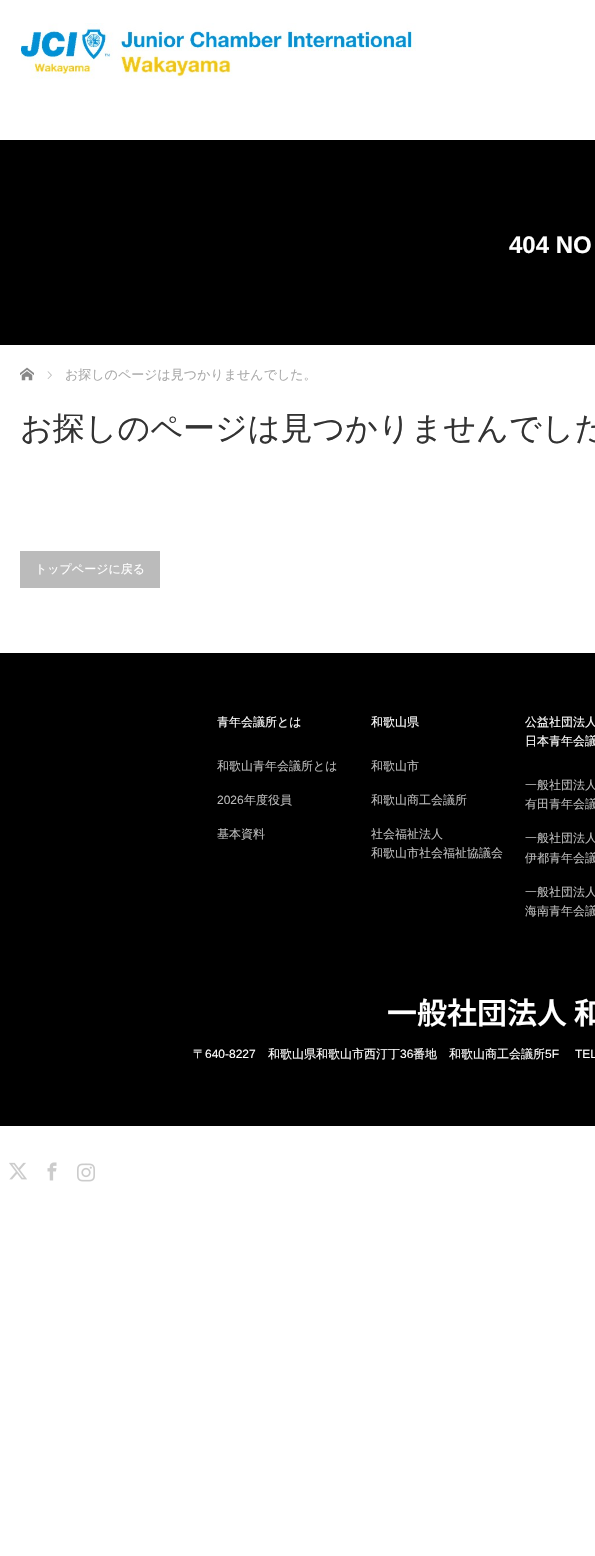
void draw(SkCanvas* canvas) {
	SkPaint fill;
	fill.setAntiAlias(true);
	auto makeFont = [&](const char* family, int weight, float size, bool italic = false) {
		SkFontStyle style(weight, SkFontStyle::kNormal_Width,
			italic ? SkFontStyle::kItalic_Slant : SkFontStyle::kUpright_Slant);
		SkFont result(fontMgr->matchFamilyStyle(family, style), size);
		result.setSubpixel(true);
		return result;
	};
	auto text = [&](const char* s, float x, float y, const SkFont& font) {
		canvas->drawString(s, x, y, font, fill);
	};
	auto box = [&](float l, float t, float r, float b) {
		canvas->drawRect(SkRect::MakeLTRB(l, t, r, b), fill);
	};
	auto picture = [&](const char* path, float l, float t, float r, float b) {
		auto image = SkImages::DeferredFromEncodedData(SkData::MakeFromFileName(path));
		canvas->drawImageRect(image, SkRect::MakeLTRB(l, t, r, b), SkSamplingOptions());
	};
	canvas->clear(0xFFFFFFFF);
	picture("image0.png", 21, 23, 416, 79);
	fill.setColor(0xFF000000);
	box(0, 140, 595, 345);
	picture("image1.png", 20, 367, 34, 381);
	picture("image2.png", 47, 371, 52, 379);
	fill.setColor(0xFFBBBBBB);
	box(20, 551, 160, 588);
	fill.setColor(0xFF000000);
	box(0, 653, 595, 1126);
	picture("image3.png", 9, 1162, 27, 1180);
	picture("image4.png", 47, 1162, 57, 1181);
	picture("image5.png", 77, 1163, 95, 1182);
	auto font1 = makeFont("Liberation Sans", 700, 24);
	fill.setColor(0xFFFFFFFF);
	text("404 NO", 509, 253, font1);
	auto font2 = makeFont("WenQuanYi Zen Hei", 500, 13);
	fill.setColor(0xFFAAAAAA);
	text("お探しのページは見つかりませんでした。", 65, 379, font2);
	auto font3 = makeFont("WenQuanYi Zen Hei", 500, 32);
	fill.setColor(0xFF333333);
	text("お探しのページは見つかりませんでした", 20, 439, font3);
	auto font4 = makeFont("WenQuanYi Zen Hei", 500, 12);
	fill.setColor(0xFFFFFFFF);
	text("トップページに戻る", 35, 573, font4);
	text("青年会議所とは", 217, 726, font4);
	fill.setColor(0xFFBBBBBB);
	text("和歌山青年会議所とは", 217, 770, font4);
	auto font5 = makeFont("Liberation Sans", 400, 12);
	text("2026", 217, 804, font5);
	text("年度役員", 244, 804, font4);
	text("基本資料", 217, 838, font4);
	fill.setColor(0xFFFFFFFF);
	text("和歌山県", 371, 726, font4);
	fill.setColor(0xFFBBBBBB);
	text("和歌山市", 371, 770, font4);
	text("和歌山商工会議所", 371, 804, font4);
	text("社会福祉法人", 371, 838, font4);
	text("和歌山市社会福祉協議会", 371, 857, font4);
	fill.setColor(0xFFFFFFFF);
	text("公益社団法人", 525, 726, font4);
	text("日本青年会議", 525, 745, font4);
	fill.setColor(0xFFBBBBBB);
	text("一般社団法人", 525, 789, font4);
	text("有田青年会議", 525, 808, font4);
	text("一般社団法人", 525, 842, font4);
	text("伊都青年会議", 525, 862, font4);
	text("一般社団法人", 525, 896, font4);
	text("海南青年会議", 525, 915, font4);
	auto font6 = makeFont("Noto Sans JP", 600, 30);
	fill.setColor(0xFFFFFFFF);
	text("一般社団法人 和", 387, 1024, font6);
	text("〒", 193, 1058, font4);
	text("640-8227", 205, 1058, font5);
	text("和歌山県和歌山市西汀丁", 268, 1058, font4);
	text("36", 400, 1058, font5);
	text("番地　和歌山商工会議所", 413, 1058, font4);
	text("5F", 545, 1058, font5);
	text("TEL", 575, 1058, font5);
}
